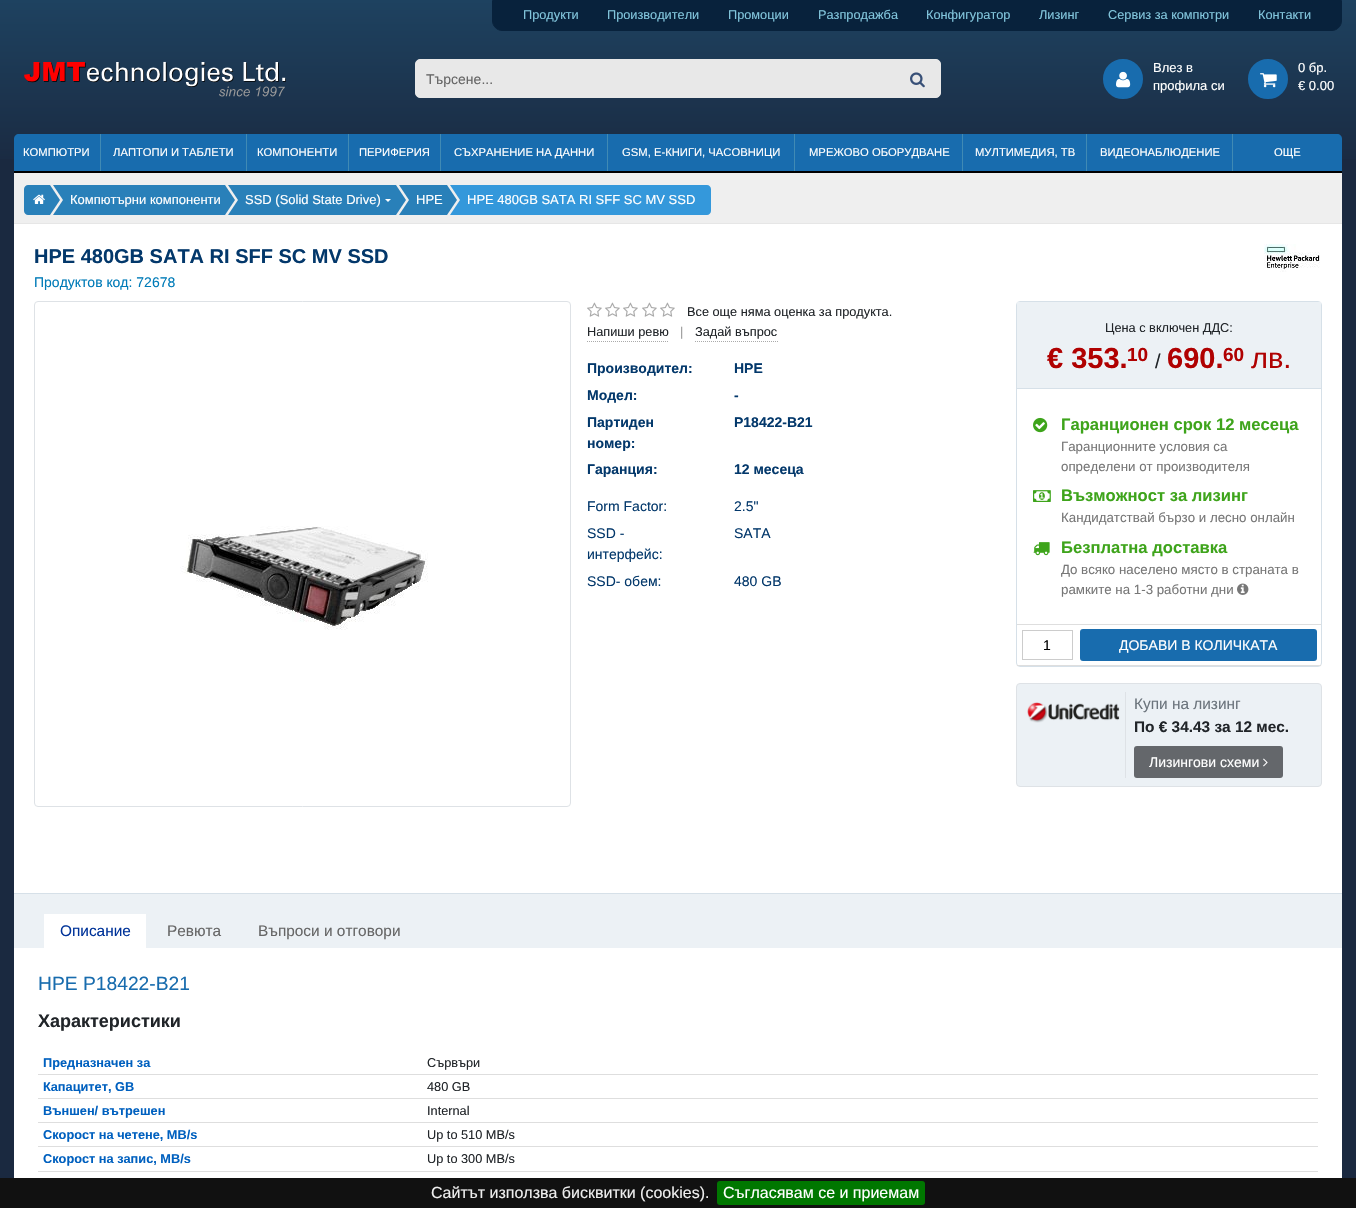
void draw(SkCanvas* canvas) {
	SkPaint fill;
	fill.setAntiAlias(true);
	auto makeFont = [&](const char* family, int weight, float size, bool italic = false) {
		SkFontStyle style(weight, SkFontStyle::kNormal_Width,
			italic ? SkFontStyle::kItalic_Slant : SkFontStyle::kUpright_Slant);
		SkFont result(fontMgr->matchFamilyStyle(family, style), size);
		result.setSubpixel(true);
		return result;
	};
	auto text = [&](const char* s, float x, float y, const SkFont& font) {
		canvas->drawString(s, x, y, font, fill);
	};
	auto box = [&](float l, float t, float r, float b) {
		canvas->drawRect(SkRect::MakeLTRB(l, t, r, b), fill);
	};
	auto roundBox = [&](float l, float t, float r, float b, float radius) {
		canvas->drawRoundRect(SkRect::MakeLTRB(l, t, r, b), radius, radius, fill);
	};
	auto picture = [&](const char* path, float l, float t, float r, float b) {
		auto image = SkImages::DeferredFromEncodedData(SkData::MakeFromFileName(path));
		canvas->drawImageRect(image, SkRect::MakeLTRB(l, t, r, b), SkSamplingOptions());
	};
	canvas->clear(0xFF1A2940);
	{
		const SkColor colors[] = {0xFF1E4260, 0xFF1A2940};
		const float stops[] = {0, 1};
		const SkPoint ends[] = {{678, 0}, {678, 173}};
		fill.setShader(SkGradientShader::MakeLinear(ends, colors, stops, 2, SkTileMode::kClamp));
		fill.setAlpha(255);
	}
	box(0, 0, 1356, 159);
	fill.setShader(nullptr);
	fill.setColor(0xFF08223C);
	canvas->drawPath(SkPathBuilder().moveTo(492.5f, 0.5f).lineTo(1341.5f, 0.5f).lineTo(1341.5f, 21).cubicTo(1341.5f, 26, 1337, 30.5f, 1332, 30.5f).lineTo(502, 30.5f).cubicTo(497, 30.5f, 492.5f, 26, 492.5f, 21).close().detach(), fill);
	fill.setStyle(SkPaint::kStroke_Style);
	fill.setStrokeWidth(1);
	canvas->drawPath(SkPathBuilder().moveTo(492.5f, 0.5f).lineTo(1341.5f, 0.5f).lineTo(1341.5f, 21).cubicTo(1341.5f, 26, 1337, 30.5f, 1332, 30.5f).lineTo(502, 30.5f).cubicTo(497, 30.5f, 492.5f, 26, 492.5f, 21).close().detach(), fill);
	picture("image0.png", 24, 61, 286, 97);
	fill.setStyle(SkPaint::kFill_Style);
	fill.setColor(0xFFE8E8E8);
	canvas->drawRoundRect(SkRect::MakeLTRB(415.5f, 59.5f, 940.5f, 97.5f), 4.5f, 4.5f, fill);
	fill.setStyle(SkPaint::kStroke_Style);
	canvas->drawRoundRect(SkRect::MakeLTRB(415.5f, 59.5f, 940.5f, 97.5f), 4.5f, 4.5f, fill);
	picture("image1.png", 910, 72, 925, 88);
	fill.setStyle(SkPaint::kFill_Style);
	fill.setColor(0xFF186CAE);
	canvas->drawCircle(1123, 79, 19, fill);
	fill.setStyle(SkPaint::kStroke_Style);
	fill.setStrokeWidth(2);
	canvas->drawCircle(1123, 79, 19, fill);
	picture("image2.png", 1116, 71, 1131, 88);
	fill.setStyle(SkPaint::kFill_Style);
	canvas->drawCircle(1268, 79, 19, fill);
	fill.setStyle(SkPaint::kStroke_Style);
	canvas->drawCircle(1268, 79, 19, fill);
	picture("image3.png", 1260, 73, 1277, 88);
	fill.setStyle(SkPaint::kFill_Style);
	canvas->drawPath(SkPathBuilder().moveTo(19, 134).lineTo(1337, 134).cubicTo(1340, 134, 1342, 136, 1342, 139).lineTo(1342, 173).lineTo(14, 173).lineTo(14, 139).cubicTo(14, 136, 16, 134, 19, 134).close().detach(), fill);
	fill.setColor(0xFF000000);
	box(14, 171, 1342, 173);
	fill.setColor(0xFF408AB4);
	box(100, 134, 101, 171);
	box(246, 134, 247, 171);
	box(348, 134, 349, 171);
	box(440, 134, 441, 171);
	box(607, 134, 608, 171);
	box(794, 134, 795, 171);
	box(962, 134, 963, 171);
	box(1086, 134, 1087, 171);
	box(1232, 134, 1233, 171);
	fill.setColor(0xFFEFEFEF);
	box(14, 173, 1342, 223);
	fill.setColor(0xFFE6E6E6);
	box(14, 223, 1342, 224);
	fill.setColor(0xFF2980B9);
	canvas->drawPath(SkPathBuilder().moveTo(28, 185).lineTo(50, 185).lineTo(50, 215).lineTo(28, 215).cubicTo(26, 215, 24, 213, 24, 211).lineTo(24, 189).cubicTo(24, 187, 26, 185, 28, 185).close().detach(), fill);
	picture("image4.png", 33, 194, 45, 204);
	canvas->drawPath(SkPathBuilder().moveTo(50, 215).lineTo(50, 185).lineTo(60, 200).close().detach(), fill);
	box(73, 185, 225, 215);
	canvas->drawPath(SkPathBuilder().moveTo(53, 185).lineTo(73, 185).lineTo(63, 200).close().detach(), fill);
	box(63, 185, 73, 215);
	canvas->drawPath(SkPathBuilder().moveTo(73, 215).lineTo(53, 215).lineTo(63, 200).close().detach(), fill);
	canvas->drawPath(SkPathBuilder().moveTo(225, 215).lineTo(225, 185).lineTo(235, 200).close().detach(), fill);
	box(248, 185, 396, 215);
	canvas->drawPath(SkPathBuilder().moveTo(228, 185).lineTo(248, 185).lineTo(238, 200).close().detach(), fill);
	box(238, 185, 248, 215);
	canvas->drawPath(SkPathBuilder().moveTo(248, 215).lineTo(228, 215).lineTo(238, 200).close().detach(), fill);
	fill.setColor(0xFFFFFFFF);
	canvas->drawPath(SkPathBuilder().moveTo(385, 199).lineTo(391, 199).lineTo(388, 202).close().detach(), fill);
	fill.setColor(0xFF2980B9);
	canvas->drawPath(SkPathBuilder().moveTo(396, 215).lineTo(396, 185).lineTo(406, 200).close().detach(), fill);
	box(419, 185, 447, 215);
	canvas->drawPath(SkPathBuilder().moveTo(399, 185).lineTo(419, 185).lineTo(409, 200).close().detach(), fill);
	box(409, 185, 419, 215);
	canvas->drawPath(SkPathBuilder().moveTo(419, 215).lineTo(399, 215).lineTo(409, 200).close().detach(), fill);
	canvas->drawPath(SkPathBuilder().moveTo(447, 215).lineTo(447, 185).lineTo(457, 200).close().detach(), fill);
	fill.setColor(0xFF3498DB);
	canvas->drawPath(SkPathBuilder().moveTo(462, 185).lineTo(707, 185).cubicTo(709, 185, 711, 187, 711, 189).lineTo(711, 211).cubicTo(711, 213, 709, 215, 707, 215).lineTo(462, 215).close().detach(), fill);
	canvas->drawPath(SkPathBuilder().moveTo(450, 185).lineTo(470, 185).lineTo(460, 200).close().detach(), fill);
	box(460, 197, 462, 215);
	canvas->drawPath(SkPathBuilder().moveTo(470, 215).lineTo(450, 215).lineTo(460, 200).close().detach(), fill);
	fill.setColor(0xFFFFFFFF);
	box(14, 224, 1342, 1178);
	picture("image5.png", 1264, 244, 1320, 272);
	fill.setStyle(SkPaint::kStroke_Style);
	fill.setStrokeWidth(1);
	fill.setColor(0xFFDEE2E6);
	canvas->drawRoundRect(SkRect::MakeLTRB(34.5f, 301.5f, 570.5f, 806.5f), 3.5f, 3.5f, fill);
	picture("image6.png", 180, 526, 428, 630);
	picture("image7.png", 587, 302, 602, 317);
	picture("image7.png", 605, 302, 620, 317);
	picture("image7.png", 623, 302, 638, 317);
	picture("image7.png", 642, 302, 657, 317);
	picture("image7.png", 660, 302, 675, 317);
	fill.setColor(0xFFAAAAAA);
	fill.setPathEffect(SkDashPathEffect::Make({{1, 1}}, 0));
	canvas->drawPath(SkPathBuilder().moveTo(587, 341.5f).lineTo(669, 341.5f).detach(), fill);
	fill.setPathEffect(nullptr);
	fill.setPathEffect(SkDashPathEffect::Make({{1, 1}}, 0));
	canvas->drawPath(SkPathBuilder().moveTo(695, 341.5f).lineTo(778, 341.5f).detach(), fill);
	fill.setPathEffect(nullptr);
	fill.setColor(0xFFD6E0E8);
	canvas->drawRoundRect(SkRect::MakeLTRB(1016.5f, 301.5f, 1321.5f, 666.5f), 3.5f, 3.5f, fill);
	fill.setStyle(SkPaint::kFill_Style);
	fill.setColor(0xFFECF1F5);
	box(1017, 302, 1321, 388);
	fill.setColor(0xFFD6E0E8);
	box(1017, 388, 1321, 389);
	picture("image8.png", 1033, 417, 1048, 433);
	picture("image9.png", 1033, 490, 1051, 502);
	picture("image10.png", 1033, 542, 1050, 556);
	picture("image11.png", 1237, 583, 1249, 595);
	fill.setColor(0xFFDEDEDE);
	box(1017, 624, 1321, 625);
	box(1017, 665, 1321, 666);
	fill.setStyle(SkPaint::kStroke_Style);
	fill.setColor(0xFFCCCCCC);
	canvas->drawRect(SkRect::MakeLTRB(1022.5f, 630.5f, 1072.5f, 659.5f), fill);
	fill.setStyle(SkPaint::kFill_Style);
	fill.setColor(0xFF186CAE);
	roundBox(1080, 629, 1317, 661, 3);
	fill.setColor(0xFFECF1F5);
	canvas->drawRoundRect(SkRect::MakeLTRB(1016.5f, 683.5f, 1321.5f, 786.5f), 3.5f, 3.5f, fill);
	fill.setStyle(SkPaint::kStroke_Style);
	fill.setColor(0xFFDEE2E6);
	canvas->drawRoundRect(SkRect::MakeLTRB(1016.5f, 683.5f, 1321.5f, 786.5f), 3.5f, 3.5f, fill);
	picture("image12.png", 1027, 702, 1120, 723);
	fill.setStyle(SkPaint::kFill_Style);
	box(1125, 692, 1126, 778);
	fill.setColor(0xFF64676B);
	roundBox(1134, 746, 1283, 778, 3);
	picture("image13.png", 1263, 758, 1268, 767);
	fill.setColor(0xFFECF1F5);
	box(14, 894, 1342, 948);
	fill.setColor(0xFFD6E0E8);
	box(14, 893, 1342, 894);
	fill.setColor(0xFFFFFFFF);
	box(44, 914, 146, 948);
	fill.setColor(0xFFDEDEDE);
	box(38, 1074, 1318, 1075);
	box(38, 1098, 1318, 1099);
	box(38, 1122, 1318, 1123);
	box(38, 1146, 1318, 1147);
	box(38, 1171, 1318, 1172);
	fill.setColor(0xFF111111);
	box(0, 1178, 1356, 1208);
	fill.setColor(0xFF007700);
	roundBox(717, 1181, 925, 1205, 3);
	auto font1 = makeFont("Liberation Sans", 400, 12.75f);
	fill.setColor(0xFF82C6DD);
	text("Продукти", 523, 19, font1);
	text("Производители", 607, 19, font1);
	text("Промоции", 728, 19, font1);
	text("Разпродажба", 818, 19, font1);
	text("Конфигуратор", 926, 19, font1);
	text("Лизинг", 1039, 19, font1);
	text("Сервиз за компютри", 1108, 19, font1);
	text("Контакти", 1258, 19, font1);
	auto font2 = makeFont("Liberation Sans", 400, 14);
	fill.setColor(0xFF666666);
	text("Търсене...", 426, 84, font2);
	auto font3 = makeFont("Liberation Sans", 400, 13);
	fill.setColor(0xFFFFFFFF);
	text("Влез в", 1153, 72, font3);
	text("профила си", 1153, 90, font3);
	text("0 бр.", 1298, 72, font3);
	text("€ 0.00", 1298, 90, font3);
	auto font4 = makeFont("Liberation Sans", 400, 11.25f);
	text("КОМПЮТРИ", 23, 156, font4);
	text("ЛАПТОПИ И ТАБЛЕТИ", 113, 156, font4);
	text("КОМПОНЕНТИ", 257, 156, font4);
	text("ПЕРИФЕРИЯ", 359, 156, font4);
	text("СЪХРАНЕНИЕ НА ДАННИ", 454, 156, font4);
	text("GSM, Е-КНИГИ, ЧАСОВНИЦИ", 622, 156, font4);
	text("МРЕЖОВО ОБОРУДВАНЕ", 809, 156, font4);
	text("МУЛТИМЕДИЯ, ТВ", 975, 156, font4);
	text("ВИДЕОНАБЛЮДЕНИЕ", 1100, 156, font4);
	text("ОЩЕ", 1274, 156, font4);
	text("Компютърни компоненти", 70, 204, font3);
	text("SSD (Solid State Drive)", 245, 204, font3);
	text("HPE", 416, 204, font3);
	text("HPE 480GB SATA RI SFF SC MV SSD", 467, 204, font3);
	auto font5 = makeFont("Liberation Sans", 700, 20);
	fill.setColor(0xFF03386B);
	text("HPE 480GB SATA RI SFF SC MV SSD", 34, 263, font5);
	fill.setColor(0xFF007BB8);
	text("Продуктов код: 72678", 34, 287, font2);
	fill.setColor(0xFF212529);
	text("Все още няма оценка за продукта.", 687, 316, font1);
	text("Напиши ревю", 587, 336, font1);
	fill.setColor(0xFF999999);
	text("|", 680, 336, font1);
	fill.setColor(0xFF212529);
	text("Задай въпрос", 695, 336, font1);
	auto font6 = makeFont("Liberation Sans", 700, 14);
	fill.setColor(0xFF03386B);
	text("Производител:", 587, 373, font6);
	text("HPE", 734, 373, font6);
	text("Модел:", 587, 400, font6);
	text("-", 734, 400, font6);
	text("Партиден", 587, 427, font6);
	text("номер:", 587, 448, font6);
	text("P18422-B21", 734, 427, font6);
	text("Гаранция:", 587, 474, font6);
	text("12 месеца", 734, 474, font6);
	text("Form Factor:", 587, 511, font2);
	text("2.5\"", 734, 511, font2);
	text("SSD -", 587, 538, font2);
	text("интерфейс:", 587, 559, font2);
	text("SATA", 734, 538, font2);
	text("SSD- обем:", 587, 586, font2);
	text("480 GB", 734, 586, font2);
	fill.setColor(0xFF212529);
	text("Цена с включен ДДС:", 1105, 332, font1);
	auto font7 = makeFont("Liberation Sans", 700, 29);
	fill.setColor(0xFFB00101);
	text("€ 353.", 1047, 368, font7);
	auto font8 = makeFont("Liberation Sans", 700, 19);
	text("10", 1127, 361, font8);
	auto font9 = makeFont("Liberation Sans", 400, 20);
	fill.setColor(0xFF212529);
	text("/", 1155, 368, font9);
	fill.setColor(0xFFB00101);
	text("690.", 1167, 368, font7);
	text("60", 1223, 361, font8);
	auto font10 = makeFont("Liberation Sans", 400, 29);
	text("лв.", 1251, 368, font10);
	auto font11 = makeFont("Liberation Sans", 700, 16.6f);
	fill.setColor(0xFF3EA41B);
	text("Гаранционен срок 12 месеца", 1061, 430, font11);
	auto font12 = makeFont("Liberation Sans", 400, 13.3f);
	fill.setColor(0xFF777777);
	text("Гаранционните условия са", 1061, 451, font12);
	text("определени от производителя", 1061, 471, font12);
	fill.setColor(0xFF3EA41B);
	text("Възможност за лизинг", 1061, 501, font11);
	fill.setColor(0xFF777777);
	text("Кандидатствай бързо и лесно онлайн", 1061, 522, font12);
	fill.setColor(0xFF3EA41B);
	text("Безплатна доставка", 1061, 553, font11);
	fill.setColor(0xFF777777);
	text("До всяко населено място в страната в", 1061, 574, font12);
	text("рамките на 1-3 работни дни", 1061, 594, font12);
	fill.setColor(0xFF000000);
	text("1", 1043, 650, font2);
	fill.setColor(0xFFFFFFFF);
	text("ДОБАВИ В КОЛИЧКАТА", 1119, 650, font2);
	auto font13 = makeFont("Liberation Sans", 400, 15.4f);
	fill.setColor(0xFF6C757D);
	text("Купи на лизинг", 1134, 709, font13);
	auto font14 = makeFont("Liberation Sans", 700, 15.4f);
	fill.setColor(0xFF212529);
	text("По € 34.43 за 12 мес.", 1134, 732, font14);
	fill.setColor(0xFFFFFFFF);
	text("Лизингови схеми", 1149, 767, font2);
	fill.setColor(0xFF003399);
	text("Описание", 60, 936, font13);
	fill.setColor(0xFF666666);
	text("Ревюта", 167, 936, font13);
	text("Въпроси и отговори", 258, 936, font13);
	auto font15 = makeFont("Liberation Sans", 400, 19.25f);
	fill.setColor(0xFF186CAE);
	text("HPE P18422-B21", 38, 990, font15);
	auto font16 = makeFont("Liberation Sans", 700, 18);
	fill.setColor(0xFF212529);
	text("Характеристики", 38, 1027, font16);
	auto font17 = makeFont("Liberation Sans", 700, 12.75f);
	fill.setColor(0xFF0060BF);
	text("Предназначен за", 43, 1067, font17);
	fill.setColor(0xFF212529);
	text("Сървъри", 427, 1067, font1);
	fill.setColor(0xFF0060BF);
	text("Капацитет, GB", 43, 1091, font17);
	fill.setColor(0xFF212529);
	text("480 GB", 427, 1091, font1);
	fill.setColor(0xFF0060BF);
	text("Външен/ вътрешен", 43, 1115, font17);
	fill.setColor(0xFF212529);
	text("Internal", 427, 1115, font1);
	fill.setColor(0xFF0060BF);
	text("Скорост на четене, MB/s", 43, 1139, font17);
	fill.setColor(0xFF212529);
	text("Up to 510 MB/s", 427, 1139, font1);
	fill.setColor(0xFF0060BF);
	text("Скорост на запис, MB/s", 43, 1163, font17);
	fill.setColor(0xFF212529);
	text("Up to 300 MB/s", 427, 1163, font1);
	auto font18 = makeFont("Liberation Sans", 400, 16);
	fill.setColor(0xFFEEEEEE);
	text("Сайтът използва бисквитки (cookies).", 431, 1198, font18);
	fill.setColor(0xFFFFFFFF);
	text("Съгласявам се и приемам", 723, 1198, font18);
}
